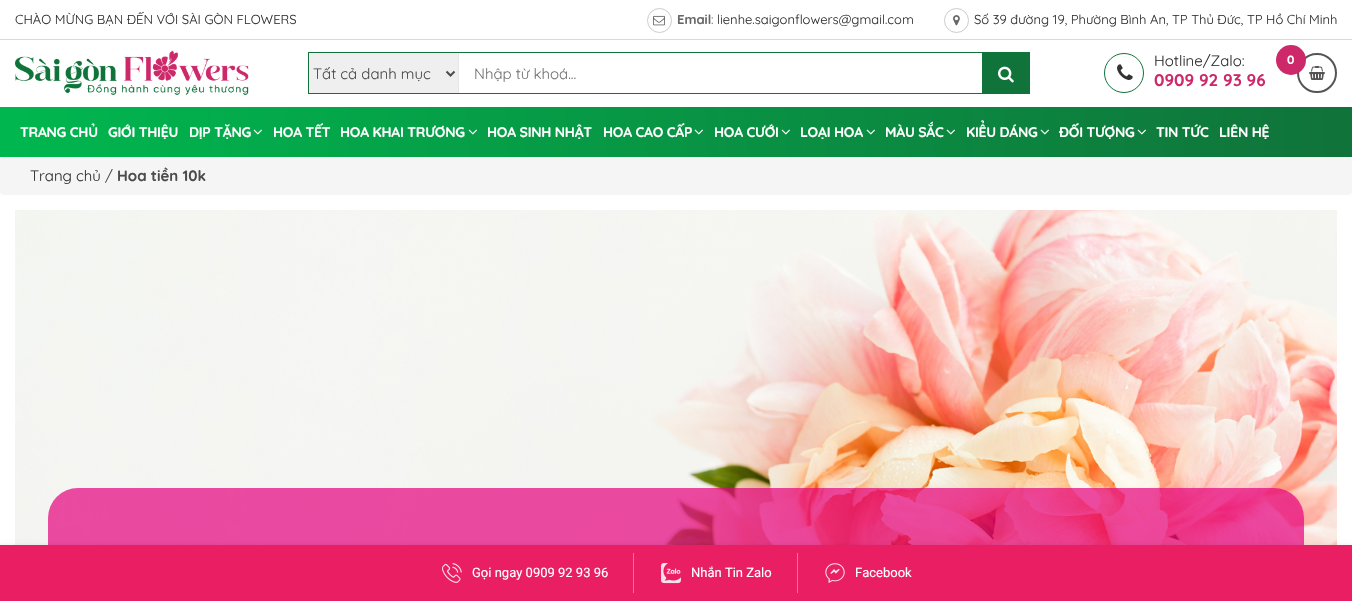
void draw(SkCanvas* canvas) {
	SkPaint fill;
	fill.setAntiAlias(true);
	auto makeFont = [&](const char* family, int weight, float size, bool italic = false) {
		SkFontStyle style(weight, SkFontStyle::kNormal_Width,
			italic ? SkFontStyle::kItalic_Slant : SkFontStyle::kUpright_Slant);
		SkFont result(fontMgr->matchFamilyStyle(family, style), size);
		result.setSubpixel(true);
		return result;
	};
	auto text = [&](const char* s, float x, float y, const SkFont& font) {
		canvas->drawString(s, x, y, font, fill);
	};
	auto spacedText = [&](const char* s, float x, float y, const SkFont& font, const SkPaint& ink, float letter, float word) {
		std::vector<SkGlyphID> glyphs(font.countText(s, strlen(s), SkTextEncoding::kUTF8));
		std::vector<float> xs(glyphs.size());
		font.textToGlyphs(s, strlen(s), SkTextEncoding::kUTF8, glyphs);
		font.getXPos(glyphs, xs, x);
		float extra = 0;
		for (size_t i = 0; i < glyphs.size(); i++) {
			xs[i] += extra;
			extra += letter + word * (glyphs[i] == font.unicharToGlyph(' '));
		}
		canvas->drawTextBlob(SkTextBlob::MakeFromPosHGlyphs(glyphs, xs, y, font), 0, 0, ink);
	};
	auto box = [&](float l, float t, float r, float b) {
		canvas->drawRect(SkRect::MakeLTRB(l, t, r, b), fill);
	};
	auto roundBox = [&](float l, float t, float r, float b, float radius) {
		canvas->drawRoundRect(SkRect::MakeLTRB(l, t, r, b), radius, radius, fill);
	};
	auto picture = [&](const char* path, float l, float t, float r, float b) {
		auto image = SkImages::DeferredFromEncodedData(SkData::MakeFromFileName(path));
		canvas->drawImageRect(image, SkRect::MakeLTRB(l, t, r, b), SkSamplingOptions());
	};
	canvas->clear(0xFFFFFFFF);
	fill.setColor(0xFFD9D9D9);
	box(0, 39, 1352, 40);
	fill.setStyle(SkPaint::kStroke_Style);
	fill.setStrokeWidth(1);
	fill.setColor(0xFFCCCCCC);
	canvas->drawCircle(659.5f, 20.5f, 12, fill);
	picture("image0.png", 653, 15, 665, 26);
	canvas->drawCircle(956.5f, 20.5f, 12, fill);
	picture("image1.png", 953, 15, 960, 26);
	picture("image2.png", 15, 50, 249, 95);
	fill.setColor(0xFF10733A);
	canvas->drawCircle(1124, 73, 19.5f, fill);
	picture("image3.png", 1117, 64, 1133, 80);
	fill.setStrokeWidth(2);
	fill.setColor(0xFF555555);
	canvas->drawCircle(1317, 73, 19, fill);
	fill.setStyle(SkPaint::kFill_Style);
	fill.setColor(0xFFCD296A);
	canvas->drawCircle(1291, 60, 15, fill);
	picture("image4.png", 1309, 66, 1325, 80);
	fill.setStyle(SkPaint::kStroke_Style);
	fill.setStrokeWidth(1);
	fill.setColor(0xFF10733A);
	canvas->drawRect(SkRect::MakeLTRB(308.5f, 52.5f, 1029.5f, 93.5f), fill);
	fill.setStyle(SkPaint::kFill_Style);
	fill.setColor(0xFFEFEFEF);
	box(309, 53, 458, 93);
	fill.setColor(0xFFE5E5E5);
	box(458, 53, 459, 93);
	fill.setStyle(SkPaint::kStroke_Style);
	fill.setStrokeWidth(2);
	fill.setColor(0xFF4C4C4C);
	canvas->drawPath(SkPathBuilder().moveTo(446.5f, 71.5f).lineTo(450.5f, 75.5f).lineTo(454.5f, 71.5f).detach(), fill);
	fill.setStyle(SkPaint::kFill_Style);
	fill.setColor(0xFF10733A);
	box(982, 53, 1029, 93);
	picture("image5.png", 998, 66, 1014, 83);
	{
		const SkColor colors[] = {0xFF10733A, 0xFF00B74F};
		const float stops[] = {0, 1};
		const SkPoint ends[] = {{1352, 108}, {0, 156}};
		fill.setShader(SkGradientShader::MakeLinear(ends, colors, stops, 2, SkTileMode::kClamp));
		fill.setAlpha(255);
	}
	box(0, 107, 1352, 157);
	picture("image6.png", 253, 129, 262, 135);
	picture("image7.png", 468, 129, 477, 135);
	picture("image8.png", 694, 129, 703, 135);
	picture("image9.png", 781, 129, 790, 135);
	picture("image10.png", 866, 129, 875, 135);
	picture("image11.png", 946, 129, 955, 135);
	picture("image12.png", 1040, 129, 1049, 135);
	picture("image13.png", 1137, 129, 1146, 135);
	fill.setShader(nullptr);
	fill.setColor(0xFFF5F5F5);
	roundBox(0, 157, 1352, 195, 4);
	picture("image14.png", 15, 210, 1337, 545);
	fill.setColor(0xB3E6007E);
	roundBox(48, 488, 1304, 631, 30);
	fill.setColor(0x1F000000);
	fill.setMaskFilter(SkMaskFilter::MakeBlur(kNormal_SkBlurStyle, 2.5f));
	canvas->drawRect(SkRect::MakeLTRB(0, 546, 1352, 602), fill);
	fill.setMaskFilter(nullptr);
	fill.setColor(0xFFE91E63);
	box(0, 545, 1352, 601);
	picture("image15.png", 442, 563, 462, 583);
	fill.setColor(0xFFF1749E);
	box(633, 553, 634, 593);
	picture("image16.png", 661, 563, 681, 584);
	box(797, 553, 798, 593);
	picture("image17.png", 825, 563, 845, 583);
	auto font1 = makeFont("Quicksand", 400, 13);
	fill.setColor(0xFF333333);
	text("CHÀO MỪNG BẠN ĐẾN VỚI SÀI GÒN FLOWERS", 15, 24, font1);
	auto font2 = makeFont("Quicksand", 700, 13);
	fill.setColor(0xFF666666);
	text("Email", 677, 24, font2);
	text(":", 711, 24, font1);
	fill.setColor(0xFF333333);
	text("lienhe.saigonflowers@gmail.com", 717, 24, font1);
	text("Số 39 đường 19, Phường Bình An, TP Thủ Đức, TP Hồ Chí Minh", 974, 24, font1);
	auto font3 = makeFont("Quicksand", 400, 15);
	text("Hotline/Zalo:", 1154, 66, font3);
	auto font4 = makeFont("Quicksand", 700, 17);
	fill.setColor(0xFFCD296A);
	text("0909 92 93 96", 1154, 86, font4);
	auto font5 = makeFont("Quicksand", 700, 12);
	fill.setColor(0xFFFFFFFF);
	text("0", 1287, 64, font5);
	fill.setColor(0xFF4C4C4C);
	text("Tất cả danh mục", 313, 79, font3);
	fill.setColor(0xFF757575);
	text("Nhập từ khoá...", 474, 79, font3);
	auto font6 = makeFont("Quicksand", 700, 14);
	fill.setColor(0xFFFFFFFF);
	spacedText("TRANG CHỦ", 20, 137, font6, fill, -0.25f, 0);
	spacedText("GIỚI THIỆU", 108, 137, font6, fill, -0.25f, 0);
	spacedText("DỊP TẶNG", 189, 137, font6, fill, -0.25f, 0);
	spacedText("HOA TẾT", 273, 137, font6, fill, -0.25f, 0);
	spacedText("HOA KHAI TRƯƠNG", 340, 137, font6, fill, -0.25f, 0);
	spacedText("HOA SINH NHẬT", 487, 137, font6, fill, -0.25f, 0);
	spacedText("HOA CAO CẤP", 603, 137, font6, fill, -0.25f, 0);
	spacedText("HOA CƯỚI", 714, 137, font6, fill, -0.25f, 0);
	spacedText("LOẠI HOA", 800, 137, font6, fill, -0.25f, 0);
	spacedText("MÀU SẮC", 885, 137, font6, fill, -0.25f, 0);
	spacedText("KIỂU DÁNG", 966, 137, font6, fill, -0.25f, 0);
	spacedText("ĐỐI TƯỢNG", 1059, 137, font6, fill, -0.25f, 0);
	spacedText("TIN TỨC", 1156, 137, font6, fill, -0.25f, 0);
	spacedText("LIÊN HỆ", 1219, 137, font6, fill, -0.25f, 0);
	fill.setColor(0xFF333333);
	text("Trang chủ", 30, 181, font3);
	fill.setColor(0xFF4C4C4C);
	text("/", 105, 181, font3);
	auto font7 = makeFont("Quicksand", 700, 15);
	text("Hoa tiền 10k", 117, 181, font7);
	auto font8 = makeFont("Roboto", 400, 13);
	fill.setColor(0xFFFFFFFF);
	text("Gọi ngay 0909 92 93 96", 472, 577, font8);
	text("Nhắn Tin Zalo", 691, 577, font8);
	text("Facebook", 855, 577, font8);
}
